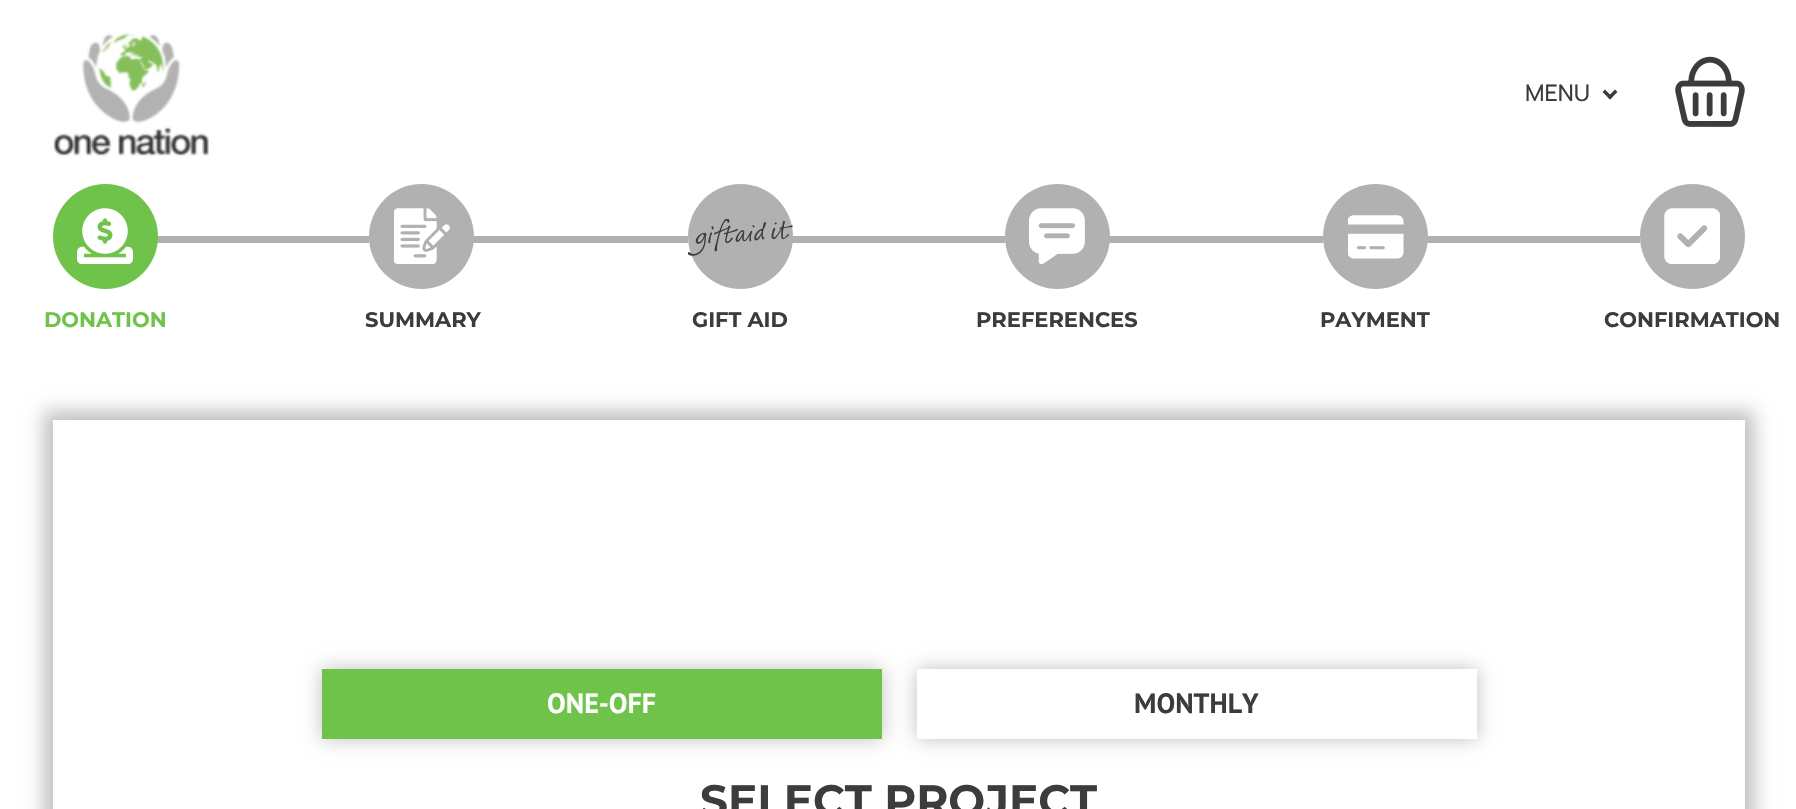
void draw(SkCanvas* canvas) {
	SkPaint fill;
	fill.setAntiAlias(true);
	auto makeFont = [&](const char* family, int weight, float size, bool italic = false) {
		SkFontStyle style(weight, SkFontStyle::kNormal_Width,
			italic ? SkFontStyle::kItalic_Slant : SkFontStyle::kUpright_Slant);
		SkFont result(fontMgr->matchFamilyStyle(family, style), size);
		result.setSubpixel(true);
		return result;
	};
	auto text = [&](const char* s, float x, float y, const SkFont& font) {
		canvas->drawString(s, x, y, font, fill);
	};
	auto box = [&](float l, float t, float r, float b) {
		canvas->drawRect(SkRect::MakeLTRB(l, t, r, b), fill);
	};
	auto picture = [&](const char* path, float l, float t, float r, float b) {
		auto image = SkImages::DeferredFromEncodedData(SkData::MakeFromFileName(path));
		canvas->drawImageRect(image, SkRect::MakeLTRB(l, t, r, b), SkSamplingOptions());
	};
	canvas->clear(0xFFFFFFFF);
	picture("image0.png", 53, 32, 209, 157);
	fill.setColor(0xFF3C3C3B);
	canvas->drawPath(SkPathBuilder().moveTo(1617.5f, 92).lineTo(1610, 99.5f).lineTo(1607.5f, 97).lineTo(1615, 89.5f).close().detach(), fill);
	canvas->drawPath(SkPathBuilder().moveTo(1612.5f, 97).lineTo(1610, 99.5f).lineTo(1602.5f, 92).lineTo(1605, 89.5f).close().detach(), fill);
	picture("image1.png", 1675, 56, 1745, 127);
	fill.setColor(0xFFB1B1B1);
	box(157, 236, 369, 243);
	fill.setColor(0xFF70C34A);
	canvas->drawCircle(105.5f, 236.5f, 52.5f, fill);
	picture("image2.png", 77, 208, 133, 264);
	fill.setColor(0xFFB1B1B1);
	box(473, 236, 688, 243);
	canvas->drawCircle(421.5f, 236.5f, 52.5f, fill);
	picture("image3.png", 394, 208, 450, 264);
	box(792, 236, 1005, 243);
	canvas->drawCircle(740.5f, 236.5f, 52.5f, fill);
	picture("image4.png", 688, 219, 793, 256);
	box(1109, 236, 1323, 243);
	canvas->drawCircle(1057.5f, 236.5f, 52.5f, fill);
	picture("image5.png", 1029, 208, 1085, 264);
	box(1427, 236, 1640, 243);
	canvas->drawCircle(1375.5f, 236.5f, 52.5f, fill);
	picture("image6.png", 1348, 215, 1404, 259);
	canvas->drawCircle(1692.5f, 236.5f, 52.5f, fill);
	picture("image7.png", 1664, 208, 1720, 264);
	fill.setColor(0x40000000);
	fill.setMaskFilter(SkMaskFilter::MakeBlur(kNormal_SkBlurStyle, 9));
	canvas->drawRect(SkRect::MakeLTRB(44, 411, 1754, 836), fill);
	fill.setMaskFilter(nullptr);
	fill.setColor(0xFFFFFFFF);
	box(53, 420, 1745, 809);
	fill.setColor(0x40000000);
	fill.setMaskFilter(SkMaskFilter::MakeBlur(kNormal_SkBlurStyle, 9));
	canvas->drawRect(SkRect::MakeLTRB(322, 669, 882, 739), fill);
	fill.setMaskFilter(nullptr);
	fill.setColor(0xFF70C34A);
	box(322, 669, 882, 739);
	fill.setColor(0x40000000);
	fill.setMaskFilter(SkMaskFilter::MakeBlur(kNormal_SkBlurStyle, 9));
	canvas->drawRect(SkRect::MakeLTRB(917, 669, 1477, 739), fill);
	fill.setMaskFilter(nullptr);
	fill.setColor(0xFFFFFFFF);
	box(917, 669, 1477, 739);
	auto font1 = makeFont("Manrope", 500, 23);
	fill.setColor(0xFF3C3C3B);
	text("MENU", 1525, 101, font1);
	auto font2 = makeFont("Montserrat", 700, 21);
	fill.setColor(0xFF70C34A);
	text("DONATION", 44, 327, font2);
	fill.setColor(0xFF3C3C3B);
	text("SUMMARY", 365, 327, font2);
	text("GIFT AID", 692, 327, font2);
	text("PREFERENCES", 976, 327, font2);
	text("PAYMENT", 1320, 327, font2);
	text("CONFIRMATION", 1604, 327, font2);
	auto font3 = makeFont("PT Sans", 700, 28);
	fill.setColor(0xFFFFFFFF);
	text("ONE-OFF", 547, 713, font3);
	fill.setColor(0xFF3C3C3B);
	text("MONTHLY", 1134, 713, font3);
	auto font4 = makeFont("Montserrat", 700, 43.75f);
	text("SELECT PROJECT", 700, 816, font4);
}
